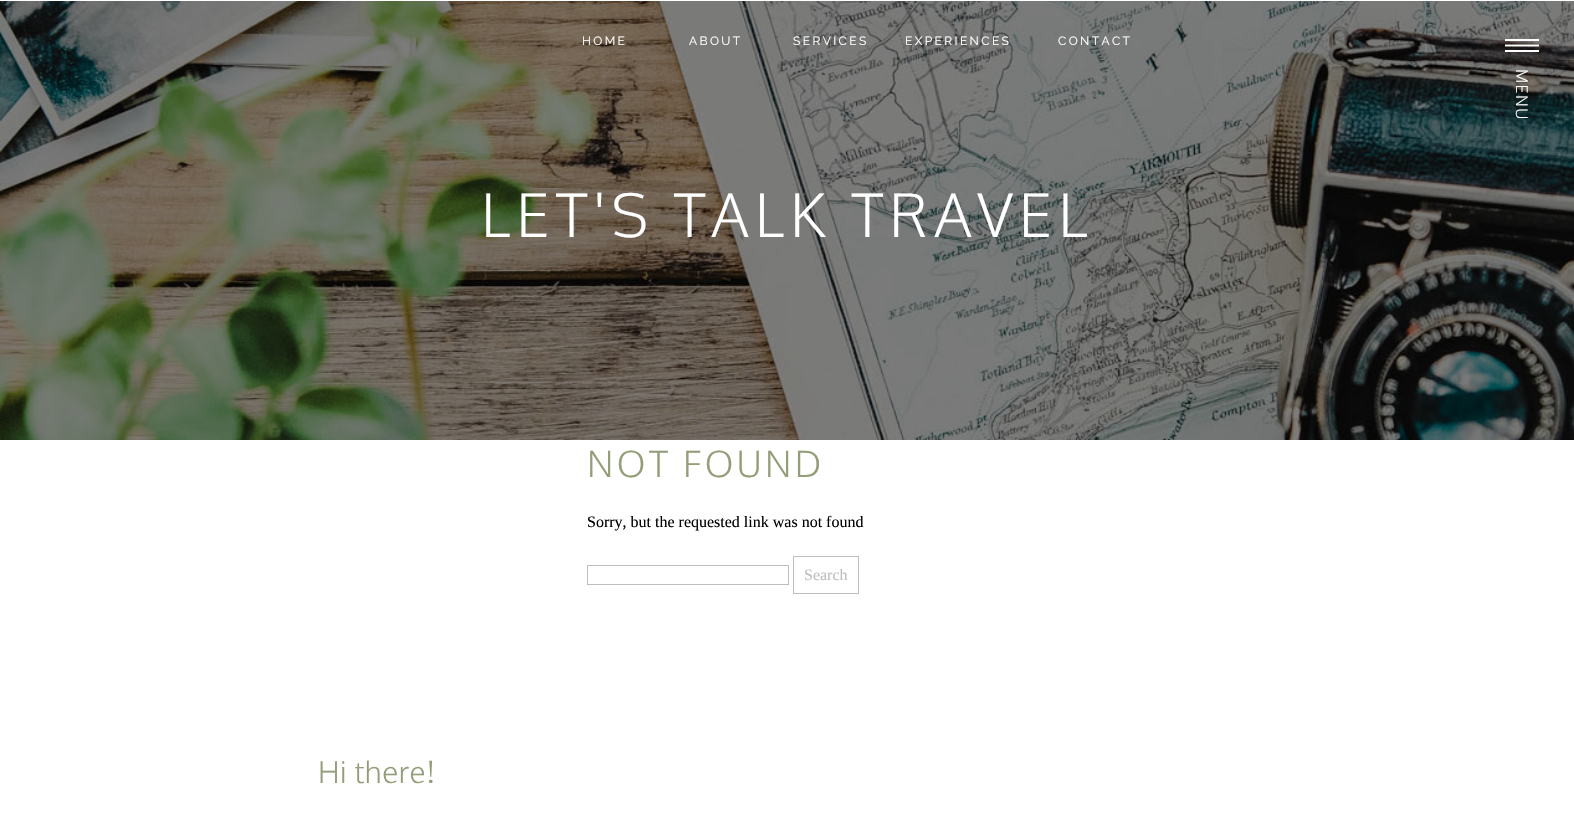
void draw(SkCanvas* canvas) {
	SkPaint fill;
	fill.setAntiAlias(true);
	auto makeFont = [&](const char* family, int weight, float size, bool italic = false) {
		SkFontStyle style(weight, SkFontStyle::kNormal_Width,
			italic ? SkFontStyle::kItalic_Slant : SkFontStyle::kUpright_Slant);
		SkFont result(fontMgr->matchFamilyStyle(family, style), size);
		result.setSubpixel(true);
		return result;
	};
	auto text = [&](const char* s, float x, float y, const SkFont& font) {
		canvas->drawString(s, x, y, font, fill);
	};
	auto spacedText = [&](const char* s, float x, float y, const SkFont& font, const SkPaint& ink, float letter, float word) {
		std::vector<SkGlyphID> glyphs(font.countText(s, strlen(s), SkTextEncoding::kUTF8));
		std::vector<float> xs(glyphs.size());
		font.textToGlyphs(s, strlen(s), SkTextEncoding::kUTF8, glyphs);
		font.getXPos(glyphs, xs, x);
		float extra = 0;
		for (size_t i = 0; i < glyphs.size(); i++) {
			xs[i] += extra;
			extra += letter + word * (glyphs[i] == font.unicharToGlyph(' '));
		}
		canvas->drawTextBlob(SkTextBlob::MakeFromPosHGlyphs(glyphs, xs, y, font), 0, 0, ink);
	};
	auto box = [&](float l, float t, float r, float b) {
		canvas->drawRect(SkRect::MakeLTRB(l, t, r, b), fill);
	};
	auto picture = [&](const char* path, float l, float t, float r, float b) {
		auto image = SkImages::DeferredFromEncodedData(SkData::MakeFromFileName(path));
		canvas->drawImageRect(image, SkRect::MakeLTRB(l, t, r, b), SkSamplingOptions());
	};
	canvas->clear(0xFFFFFFFF);
	fill.setColor(0xFF000000);
	box(0, 1, 1574, 440);
	picture("image0.png", 0, 1, 1574, 440);
	fill.setColor(0xFFFFFFFF);
	canvas->drawPath(SkPathBuilder().moveTo(1505, 50).lineTo(1539, 50).lineTo(1539, 52).lineTo(1505, 52).close().moveTo(1505, 44.5f).lineTo(1539, 44.5f).lineTo(1539, 46.5f).lineTo(1505, 46.5f).close().moveTo(1505, 39).lineTo(1539, 39).lineTo(1539, 41).lineTo(1505, 41).close().detach(), fill);
	fill.setStyle(SkPaint::kStroke_Style);
	fill.setStrokeWidth(1);
	fill.setColor(0xFFBDBDBD);
	canvas->drawRect(SkRect::MakeLTRB(587.5f, 565.5f, 788.5f, 584.5f), fill);
	fill.setColor(0xFFBEBEBE);
	canvas->drawRect(SkRect::MakeLTRB(793.5f, 556.5f, 858.5f, 593.5f), fill);
	auto font1 = makeFont("Raleway", 100, 12);
	fill.setStyle(SkPaint::kFill_Style);
	fill.setColor(0xFFFFFFFF);
	spacedText("HOME", 582, 45, font1, fill, 2.4f, 0);
	spacedText("ABOUT", 689, 45, font1, fill, 2.4f, 0);
	spacedText("SERVICES", 793, 45, font1, fill, 2.4f, 0);
	spacedText("EXPERIENCES", 905, 45, font1, fill, 2.4f, 0);
	spacedText("CONTACT", 1058, 45, font1, fill, 2.4f, 0);
	auto font2 = makeFont("Oxygen", 300, 16);
	canvas->save();
	canvas->rotate(90, 1516, 69);
	spacedText("MENU", 1516, 69, font2, fill, 1.5f, 0);
	canvas->restore();
	auto font3 = makeFont("Oxygen", 300, 60);
	spacedText("LET'S TALK TRAVEL", 481, 237, font3, fill, 6, 0);
	auto font4 = makeFont("Oxygen", 300, 36);
	fill.setColor(0xFF939D77);
	spacedText("NOT FOUND", 587, 477, font4, fill, 3.5f, 0);
	auto font5 = makeFont("Liberation Serif", 400, 16);
	fill.setColor(0xFF000000);
	text("Sorry, but the requested link was not found", 587, 527, font5);
	fill.setColor(0xFFBEBEBE);
	text("Search", 804, 580, font5);
	auto font6 = makeFont("Oxygen", 300, 30);
	fill.setColor(0xFF939D77);
	spacedText("Hi there!", 318, 783, font6, fill, 0.5f, 0);
}
